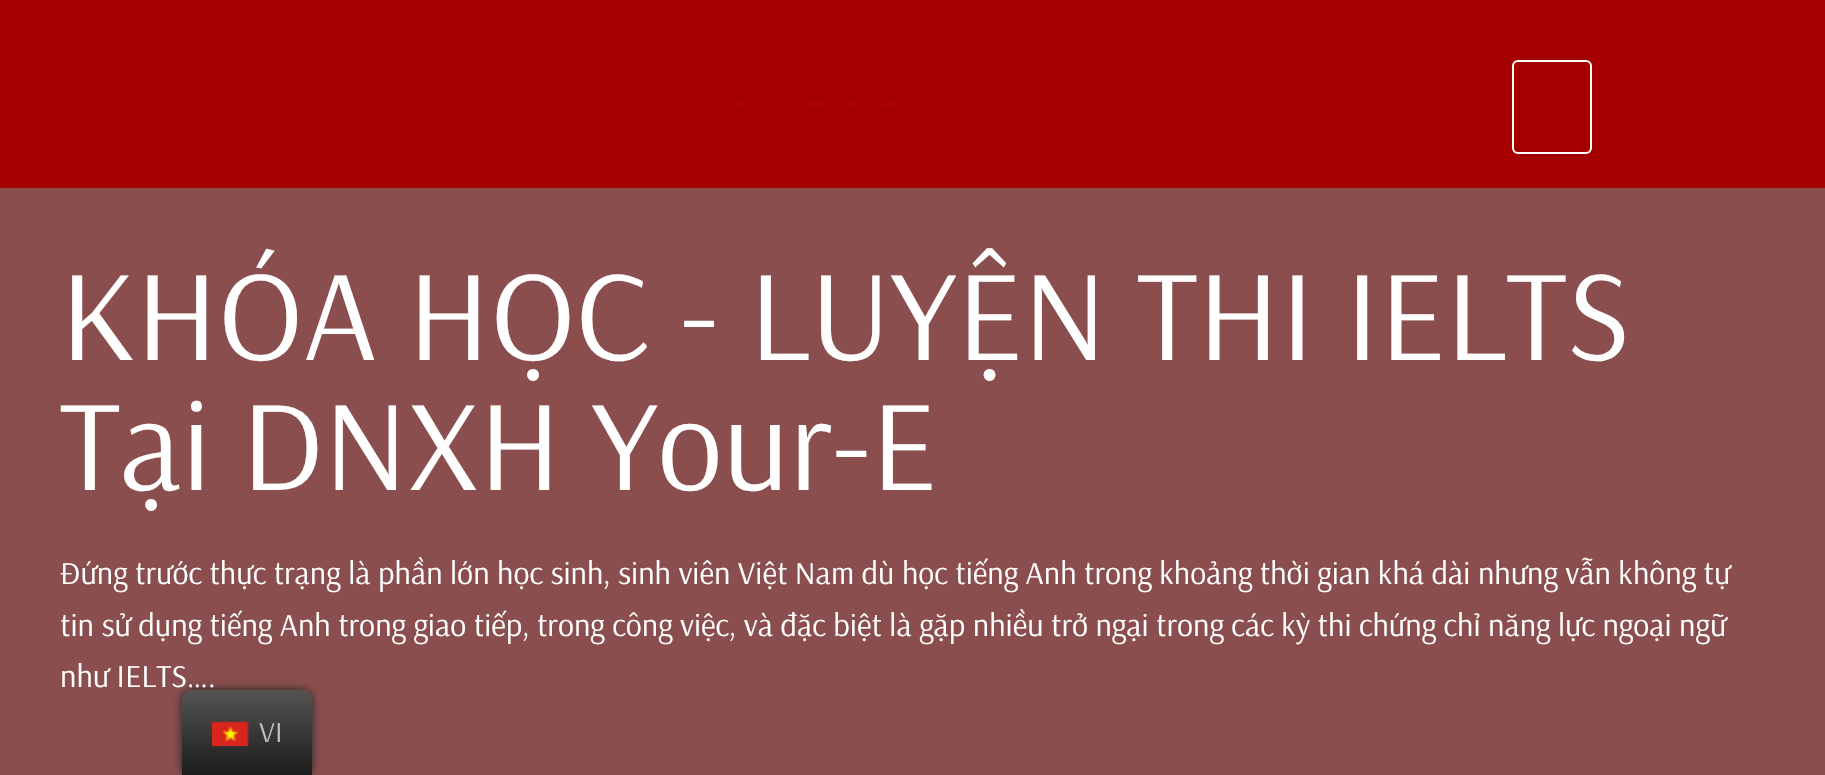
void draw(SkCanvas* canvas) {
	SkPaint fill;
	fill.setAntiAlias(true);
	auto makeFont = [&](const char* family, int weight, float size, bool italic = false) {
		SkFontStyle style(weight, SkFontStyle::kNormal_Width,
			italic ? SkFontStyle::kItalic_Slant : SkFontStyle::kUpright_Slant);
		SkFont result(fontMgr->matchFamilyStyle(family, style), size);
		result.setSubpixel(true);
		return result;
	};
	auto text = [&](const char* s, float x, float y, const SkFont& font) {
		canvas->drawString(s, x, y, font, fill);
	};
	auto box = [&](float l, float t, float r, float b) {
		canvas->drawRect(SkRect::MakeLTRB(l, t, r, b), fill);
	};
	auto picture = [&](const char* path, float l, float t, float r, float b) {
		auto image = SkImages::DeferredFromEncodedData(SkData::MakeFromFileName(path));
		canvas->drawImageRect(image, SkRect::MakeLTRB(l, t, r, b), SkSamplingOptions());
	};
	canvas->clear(0xFFA50000);
	picture("image0.png", 699, 100, 926, 107);
	fill.setStyle(SkPaint::kStroke_Style);
	fill.setStrokeWidth(2);
	fill.setColor(0xFFFFFFFF);
	canvas->drawRoundRect(SkRect::MakeLTRB(1513, 61, 1591, 153), 5, 5, fill);
	fill.setStyle(SkPaint::kFill_Style);
	fill.setColor(0xFF8A4E4E);
	box(0, 188, 1825, 775);
	fill.setColor(0xFF212121);
	fill.setMaskFilter(SkMaskFilter::MakeBlur(kNormal_SkBlurStyle, 5));
	canvas->drawRoundRect(SkRect::MakeLTRB(182, 690, 312, 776), 10, 10, fill);
	fill.setMaskFilter(nullptr);
	{
		const SkColor colors[] = {0xFF1B1B1B, 0xFF545454};
		const float stops[] = {0, 1};
		const SkPoint ends[] = {{247, 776}, {247, 690}};
		fill.setShader(SkGradientShader::MakeLinear(ends, colors, stops, 2, SkTileMode::kClamp));
		fill.setAlpha(255);
	}
	canvas->drawPath(SkPathBuilder().moveTo(192, 690).lineTo(302, 690).cubicTo(307.5f, 690, 312, 694.5f, 312, 700).lineTo(312, 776).lineTo(182, 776).lineTo(182, 700).cubicTo(182, 694.5f, 186.5f, 690, 192, 690).close().detach(), fill);
	picture("image1.png", 212, 721, 249, 746);
	auto font1 = makeFont("Arsenal", 400, 130);
	fill.setShader(nullptr);
	fill.setColor(0xFFFFFFFF);
	text("KHÓA HỌC - LUYỆN THI IELTS", 60, 360, font1);
	text("Tại DNXH Your-E", 60, 490, font1);
	auto font2 = makeFont("Arsenal", 400, 32);
	text("Đứng trước thực trạng là phần lớn học sinh, sinh viên Việt Nam dù học tiếng Anh trong khoảng thời gian khá dài nhưng vẫn không tự", 60, 584, font2);
	text("tin sử dụng tiếng Anh trong giao tiếp, trong công việc, và đặc biệt là gặp nhiều trở ngại trong các kỳ thi chứng chỉ năng lực ngoại ngữ", 60, 636, font2);
	text("như IELTS….", 60, 687, font2);
	auto font3 = makeFont("Arsenal", 400, 29);
	fill.setColor(0xFFBDBDBD);
	text("VI", 259, 742, font3);
}
